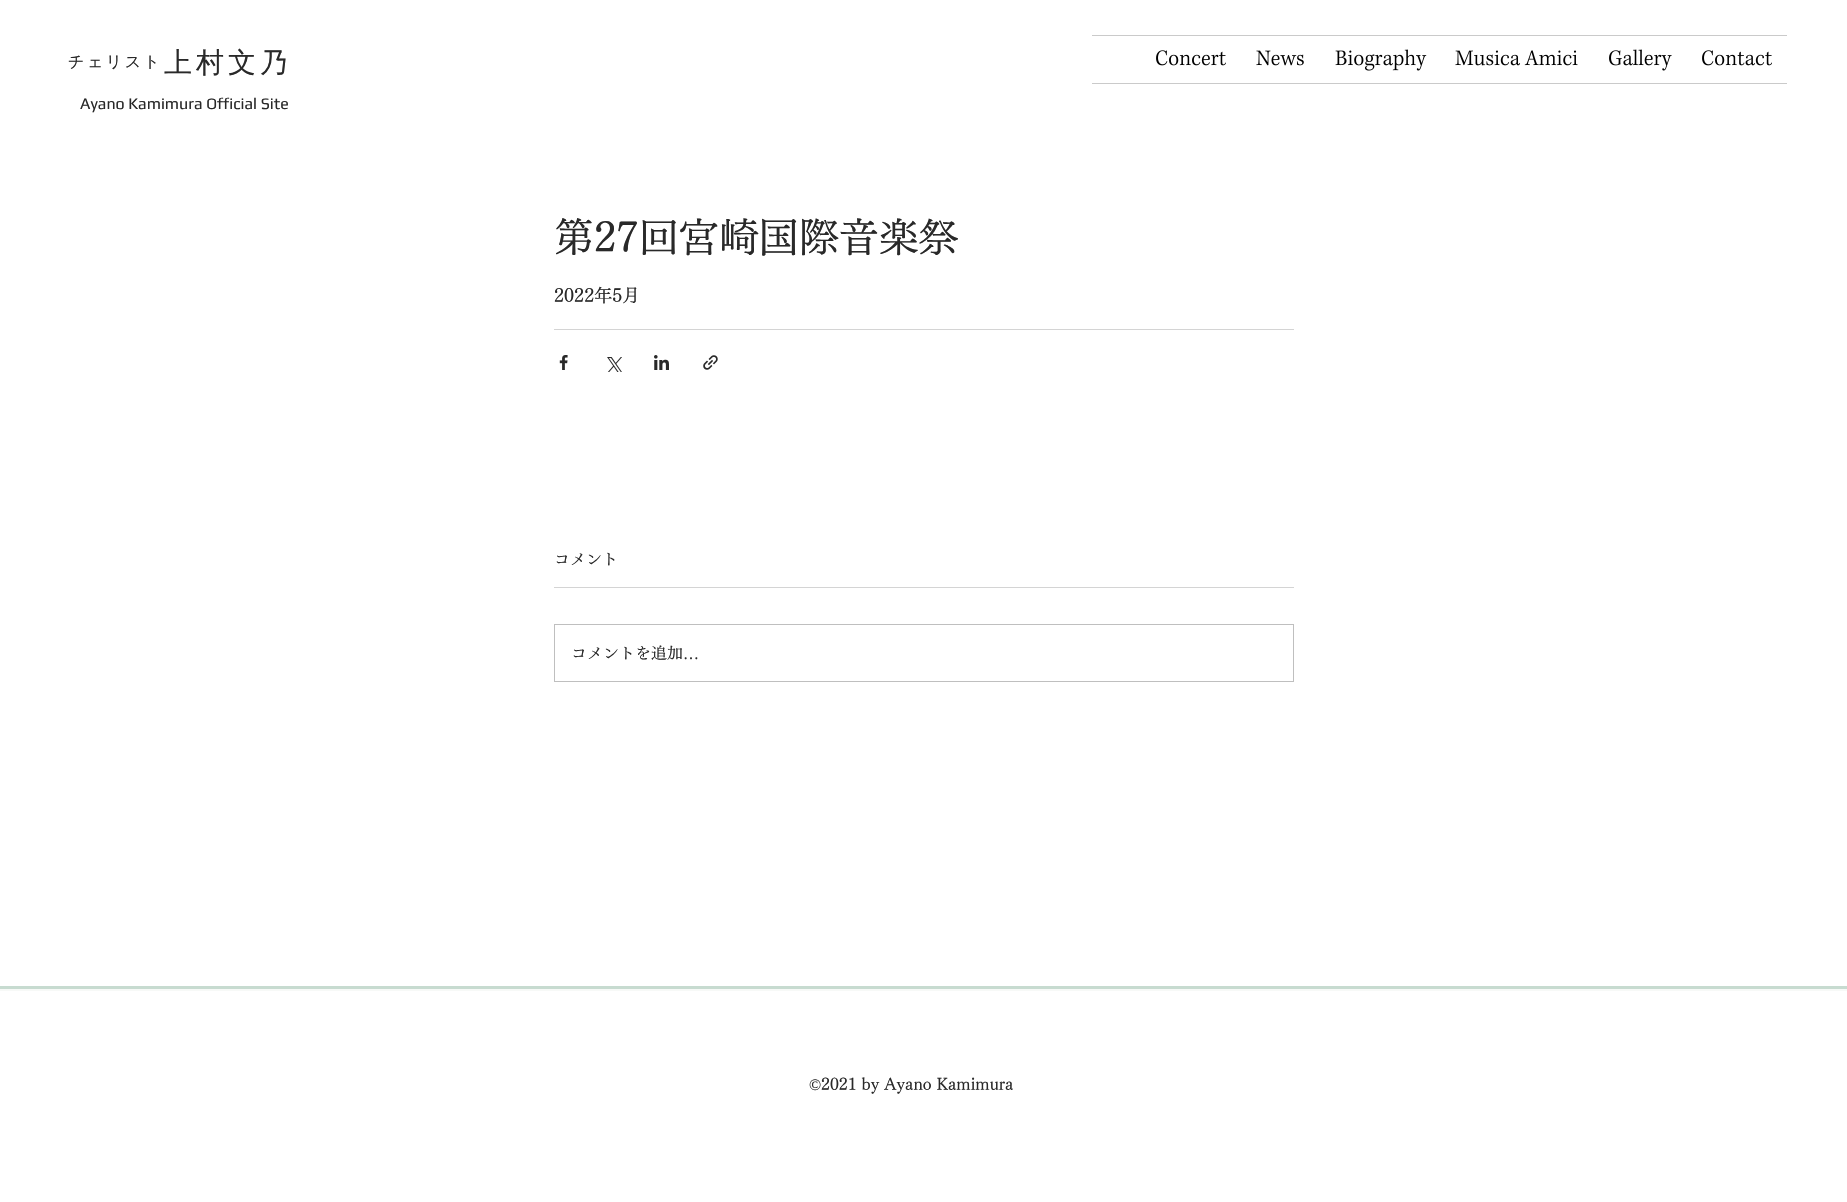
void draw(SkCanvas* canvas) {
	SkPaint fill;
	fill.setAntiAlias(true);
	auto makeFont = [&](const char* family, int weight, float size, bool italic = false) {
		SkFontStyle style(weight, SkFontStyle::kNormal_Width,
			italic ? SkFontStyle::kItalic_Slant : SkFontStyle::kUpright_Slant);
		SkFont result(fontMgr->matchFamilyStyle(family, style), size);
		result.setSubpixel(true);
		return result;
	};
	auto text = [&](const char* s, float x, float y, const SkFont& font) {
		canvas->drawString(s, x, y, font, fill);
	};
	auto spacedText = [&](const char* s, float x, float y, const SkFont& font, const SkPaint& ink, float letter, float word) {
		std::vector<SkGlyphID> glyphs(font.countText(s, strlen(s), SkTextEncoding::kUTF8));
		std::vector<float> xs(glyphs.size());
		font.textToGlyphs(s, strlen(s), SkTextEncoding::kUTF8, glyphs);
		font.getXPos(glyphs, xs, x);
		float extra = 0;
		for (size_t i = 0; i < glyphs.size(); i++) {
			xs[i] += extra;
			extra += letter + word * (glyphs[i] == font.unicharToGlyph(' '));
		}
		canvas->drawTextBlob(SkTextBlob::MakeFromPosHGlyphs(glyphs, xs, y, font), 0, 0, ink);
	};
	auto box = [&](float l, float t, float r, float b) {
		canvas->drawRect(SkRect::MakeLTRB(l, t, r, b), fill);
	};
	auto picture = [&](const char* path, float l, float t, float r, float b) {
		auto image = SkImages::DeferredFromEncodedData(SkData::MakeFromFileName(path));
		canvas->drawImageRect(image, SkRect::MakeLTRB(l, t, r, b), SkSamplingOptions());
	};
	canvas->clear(0xFFFFFFFF);
	fill.setColor(0xFFCACACA);
	box(1092, 35, 1787, 36);
	box(1092, 83, 1787, 84);
	picture("image0.png", 1156, 50, 1226, 66);
	picture("image1.png", 1256, 50, 1304, 66);
	picture("image2.png", 1335, 49, 1427, 71);
	picture("image3.png", 1455, 50, 1578, 66);
	picture("image4.png", 1609, 49, 1672, 71);
	picture("image5.png", 1702, 50, 1772, 66);
	fill.setColor(0xFFD4D4D4);
	box(554, 329, 1294, 330);
	picture("image6.png", 559, 355, 568, 370);
	picture("image7.png", 607, 357, 622, 372);
	picture("image8.png", 654, 355, 669, 370);
	picture("image9.png", 703, 355, 718, 370);
	box(554, 587, 1294, 588);
	fill.setStyle(SkPaint::kStroke_Style);
	fill.setStrokeWidth(1);
	fill.setColor(0xFFBFBFBF);
	canvas->drawRect(SkRect::MakeLTRB(554.5f, 624.5f, 1293.5f, 681.5f), fill);
	fill.setStyle(SkPaint::kFill_Style);
	fill.setColor(0xFFF7F9F7);
	box(0, 989, 1847, 991);
	fill.setColor(0xFFC7DBD0);
	box(0, 986, 1847, 989);
	auto font1 = makeFont("WenQuanYi Zen Hei", 500, 16);
	fill.setColor(0xFF292929);
	spacedText("チェリスト", 68, 67, font1, fill, 2.5f, 0);
	auto font2 = makeFont("WenQuanYi Zen Hei", 500, 28);
	spacedText("上村文乃", 164, 72, font2, fill, 4, 0);
	auto font3 = makeFont("Play", 400, 16);
	text("Ayano Kamimura Official Site", 80, 109, font3);
	auto font4 = makeFont("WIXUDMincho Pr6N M", 500, 40);
	text("第27回宮崎国際音楽祭", 554, 252, font4);
	auto font5 = makeFont("WIXUDMincho Pr6N M", 500, 18);
	text("2022年5月", 554, 302, font5);
	auto font6 = makeFont("WIXUDMincho Pr6N M", 500, 16);
	text("コメント", 554, 565, font6);
	text("コメントを追加", 571, 659, font6);
	auto font7 = makeFont("Liberation Serif", 400, 16);
	text("…", 683, 659, font7);
	text("©", 809, 1090, font7);
	text("2021 by Ayano Kamimura", 821, 1090, font6);
}
